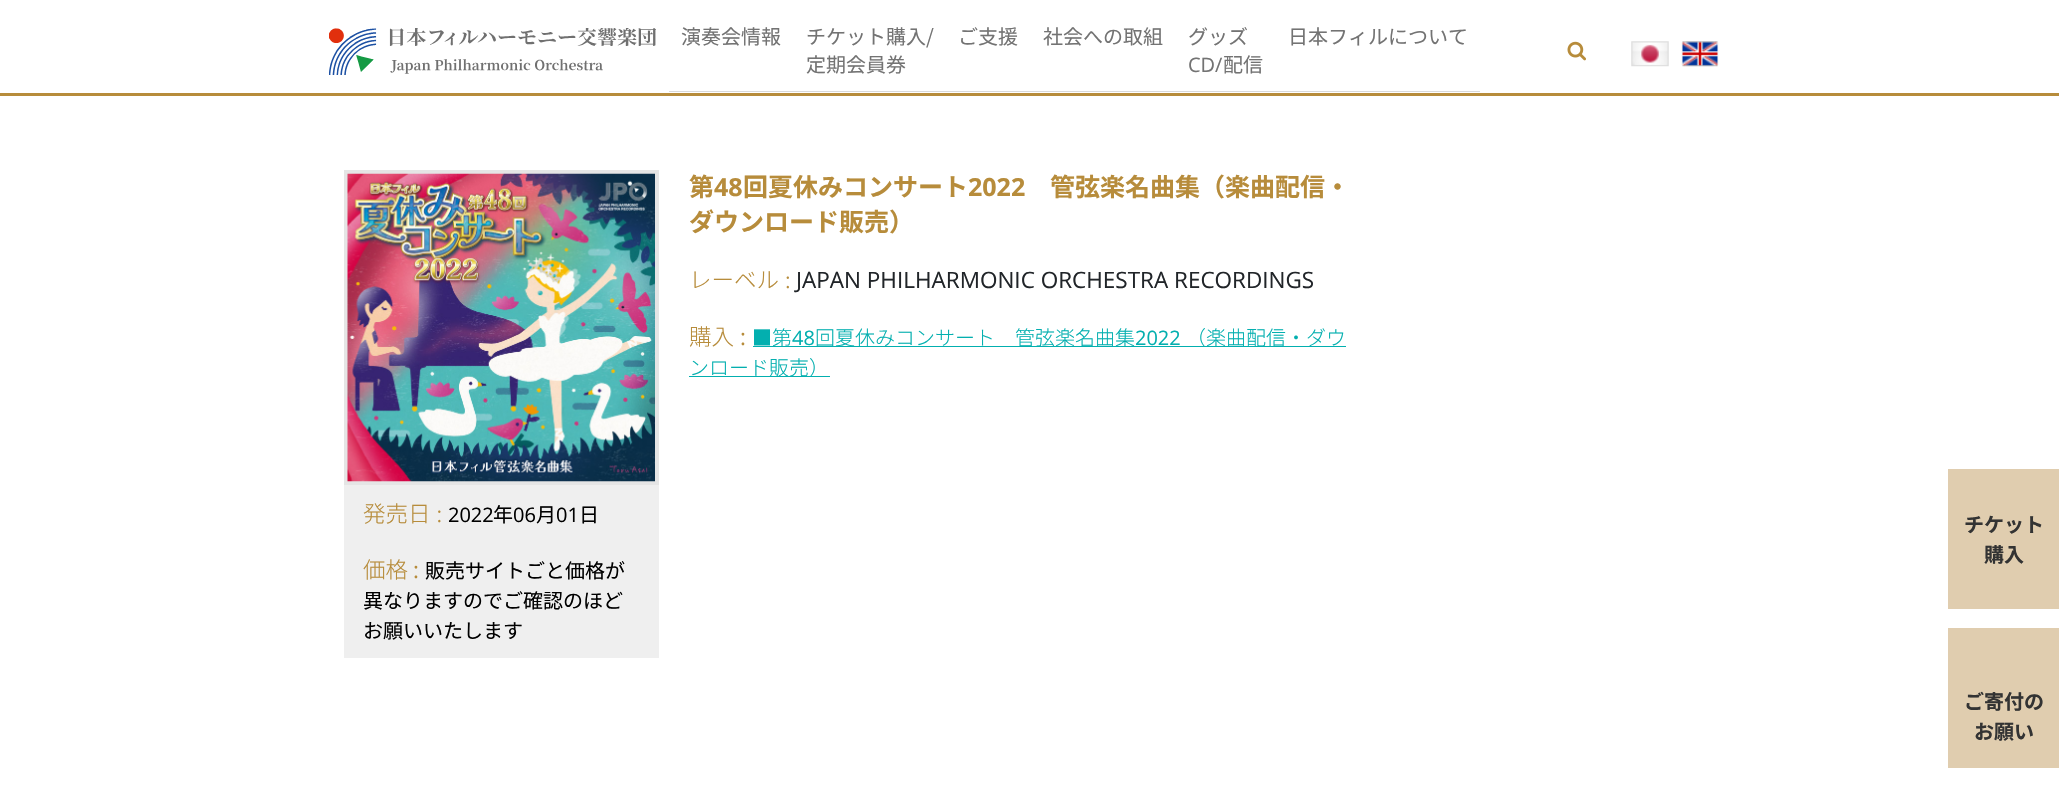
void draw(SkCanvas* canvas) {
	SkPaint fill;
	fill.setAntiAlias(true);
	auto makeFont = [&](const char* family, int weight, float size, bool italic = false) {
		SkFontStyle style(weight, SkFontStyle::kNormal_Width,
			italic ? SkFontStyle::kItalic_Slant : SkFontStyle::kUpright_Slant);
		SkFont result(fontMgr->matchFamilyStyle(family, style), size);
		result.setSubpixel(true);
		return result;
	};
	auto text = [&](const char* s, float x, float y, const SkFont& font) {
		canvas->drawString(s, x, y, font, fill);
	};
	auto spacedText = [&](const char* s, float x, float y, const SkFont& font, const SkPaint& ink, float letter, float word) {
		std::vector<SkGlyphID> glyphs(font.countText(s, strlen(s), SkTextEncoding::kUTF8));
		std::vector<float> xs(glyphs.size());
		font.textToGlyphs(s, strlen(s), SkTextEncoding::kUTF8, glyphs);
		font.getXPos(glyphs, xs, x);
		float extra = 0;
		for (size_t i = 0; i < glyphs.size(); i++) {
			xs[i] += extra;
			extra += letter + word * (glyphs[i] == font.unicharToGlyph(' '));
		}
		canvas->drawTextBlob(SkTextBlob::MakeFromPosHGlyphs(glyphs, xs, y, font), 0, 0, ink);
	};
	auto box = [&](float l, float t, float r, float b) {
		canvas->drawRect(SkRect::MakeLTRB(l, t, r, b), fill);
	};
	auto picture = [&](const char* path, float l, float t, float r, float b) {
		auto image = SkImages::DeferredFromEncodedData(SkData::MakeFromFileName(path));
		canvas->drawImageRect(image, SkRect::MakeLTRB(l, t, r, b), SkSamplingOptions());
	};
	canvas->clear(0xFFFFFFFF);
	fill.setColor(0xFFB78C3B);
	box(0, 93, 2059, 96);
	picture("image0.png", 329, 28, 656, 75);
	fill.setColor(0xFFD9D9D9);
	box(669, 91, 1480, 92);
	picture("image1.png", 1567, 41, 1586, 61);
	picture("image2.png", 1631, 41, 1669, 67);
	picture("image3.png", 1681, 41, 1719, 67);
	fill.setColor(0xFF03AFAF);
	box(753, 346, 1346, 347);
	box(689, 376, 830, 377);
	fill.setStyle(SkPaint::kStroke_Style);
	fill.setStrokeWidth(4);
	fill.setColor(0xFFE5E5E5);
	canvas->drawRect(SkRect::MakeLTRB(346, 172, 657, 483), fill);
	picture("image4.png", 347, 173, 655, 482);
	fill.setStyle(SkPaint::kFill_Style);
	fill.setColor(0xFFEFEFEF);
	box(344, 485, 659, 658);
	fill.setColor(0xFFE0CDAF);
	box(1948, 469, 2059, 609);
	box(1948, 628, 2059, 768);
	auto font1 = makeFont("Noto Sans JP", 400, 20);
	fill.setColor(0xFF737373);
	text("演奏会情報", 681, 44, font1);
	text("チケット購入/", 806, 44, font1);
	text("定期会員券", 806, 72, font1);
	text("ご支援", 958, 44, font1);
	text("社会への取組", 1043, 44, font1);
	text("グッズ", 1188, 44, font1);
	auto font2 = makeFont("Open Sans", 400, 20);
	text("CD/", 1188, 72, font2);
	text("配信", 1223, 72, font1);
	text("日本フィルについて", 1288, 44, font1);
	auto font3 = makeFont("Noto Sans JP", 700, 25);
	fill.setColor(0xFFB78C3B);
	text("第", 689, 196, font3);
	auto font4 = makeFont("Open Sans", 700, 25);
	text("48", 714, 196, font4);
	text("回夏休みコンサート", 743, 196, font3);
	text("2022", 968, 196, font4);
	text("管弦楽名曲集（楽曲配信・", 1050, 196, font3);
	text("ダウンロード販売）", 689, 231, font3);
	auto font5 = makeFont("Noto Sans JP", 300, 22.5f);
	spacedText("レーベル :", 689, 288, font5, fill, 0, 1);
	auto font6 = makeFont("Open Sans", 400, 22.5f);
	fill.setColor(0xFF212529);
	text("JAPAN PHILHARMONIC ORCHESTRA RECORDINGS", 796, 288, font6);
	fill.setColor(0xFFB78C3B);
	text("購入", 689, 345, font5);
	text(":", 740, 345, font6);
	auto font7 = makeFont("Noto Sans JP", 300, 20);
	fill.setColor(0xFF03AFAF);
	text("■第", 752, 345, font7);
	text("48", 792, 345, font2);
	text("回夏休みコンサート　管弦楽名曲集", 815, 345, font7);
	text("2022", 1135, 345, font2);
	text("（楽曲配信・ダウ", 1186, 345, font7);
	text("ンロード販売）", 689, 375, font7);
	fill.setColor(0xFFB78C3B);
	spacedText("発売日 :", 363, 522, font5, fill, 0, 1);
	fill.setColor(0xFF000000);
	text("2022", 448, 522, font2);
	text("年", 493, 522, font1);
	text("06", 513, 522, font2);
	text("月", 536, 522, font1);
	text("01", 556, 522, font2);
	text("日", 579, 522, font1);
	fill.setColor(0xFFB78C3B);
	text("価格", 363, 578, font5);
	text(":", 413, 578, font6);
	fill.setColor(0xFF000000);
	text("販売サイトごと価格が", 425, 578, font1);
	text("異なりますのでご確認のほど", 363, 608, font1);
	text("お願いいたします", 363, 638, font1);
	auto font8 = makeFont("Noto Sans JP", 700, 20);
	fill.setColor(0xFF333333);
	text("チケット", 1964, 532, font8);
	text("購入", 1984, 562, font8);
	text("ご寄付の", 1964, 709, font8);
	text("お願い", 1974, 739, font8);
}
